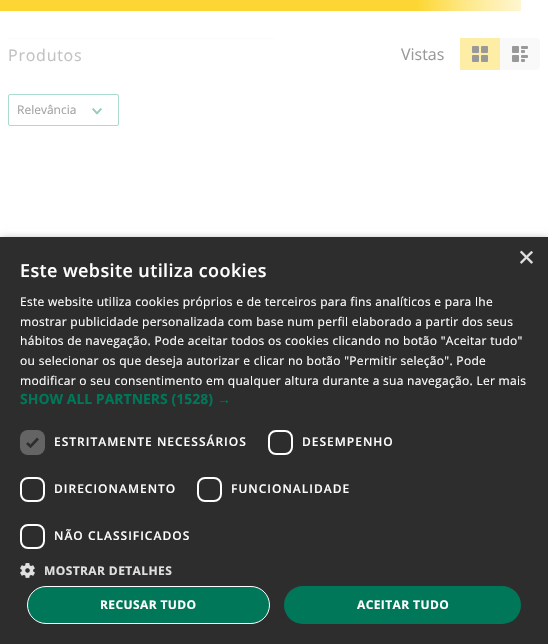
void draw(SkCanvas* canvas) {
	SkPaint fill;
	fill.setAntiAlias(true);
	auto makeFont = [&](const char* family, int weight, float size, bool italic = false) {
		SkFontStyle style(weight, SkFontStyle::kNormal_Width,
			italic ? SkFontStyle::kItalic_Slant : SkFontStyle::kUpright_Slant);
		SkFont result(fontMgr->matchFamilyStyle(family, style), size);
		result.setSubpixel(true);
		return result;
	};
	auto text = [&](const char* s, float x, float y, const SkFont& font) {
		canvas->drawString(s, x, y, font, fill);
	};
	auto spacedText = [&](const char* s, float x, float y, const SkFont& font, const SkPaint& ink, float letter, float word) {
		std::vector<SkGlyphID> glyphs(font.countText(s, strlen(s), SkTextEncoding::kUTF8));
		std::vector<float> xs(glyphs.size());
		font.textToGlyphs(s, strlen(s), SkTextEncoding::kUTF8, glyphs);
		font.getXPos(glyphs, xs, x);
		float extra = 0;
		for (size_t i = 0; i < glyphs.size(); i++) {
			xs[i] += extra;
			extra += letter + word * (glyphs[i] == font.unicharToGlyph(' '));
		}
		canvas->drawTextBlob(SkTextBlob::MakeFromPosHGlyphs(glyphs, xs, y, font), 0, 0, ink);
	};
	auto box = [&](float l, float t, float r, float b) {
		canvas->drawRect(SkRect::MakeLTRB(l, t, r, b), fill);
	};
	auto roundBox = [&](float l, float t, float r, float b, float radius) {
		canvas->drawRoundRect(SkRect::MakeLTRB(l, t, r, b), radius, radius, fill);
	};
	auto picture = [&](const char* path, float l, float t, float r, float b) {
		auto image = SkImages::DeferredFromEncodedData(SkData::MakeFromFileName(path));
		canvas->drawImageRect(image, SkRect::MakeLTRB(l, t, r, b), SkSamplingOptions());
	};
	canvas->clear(0xFFFFFFFF);
	{
		const SkColor colors[] = {0xFFFCD733, 0xFFFEE98E, 0xFFFEF6D2};
		const float stops[] = {0.8f, 0.9f, 1};
		const SkPoint ends[] = {{0, 5.6f}, {521, 5.6f}};
		fill.setShader(SkGradientShader::MakeLinear(ends, colors, stops, 3, SkTileMode::kClamp));
		fill.setAlpha(255);
	}
	box(0, 0, 521, 11);
	fill.setShader(nullptr);
	fill.setColor(0xFFFAFBFB);
	box(8, 38, 274, 39);
	fill.setColor(0xFFFEEDA4);
	box(460, 38, 500, 70);
	picture("image0.png", 472, 46, 488, 62);
	fill.setColor(0xFFF9F9F9);
	canvas->drawPath(SkPathBuilder().moveTo(500, 38).lineTo(536, 38).cubicTo(538, 38, 540, 40, 540, 42).lineTo(540, 66).cubicTo(540, 68, 538, 70, 536, 70).lineTo(500, 70).close().detach(), fill);
	picture("image1.png", 512, 46, 528, 62);
	fill.setStyle(SkPaint::kStroke_Style);
	fill.setStrokeWidth(1);
	fill.setColor(0xFFA9DBCF);
	canvas->drawRoundRect(SkRect::MakeLTRB(8.5f, 94.5f, 118.5f, 125.5f), 1.5f, 1.5f, fill);
	picture("image2.png", 92, 108, 102, 115);
	fill.setStyle(SkPaint::kFill_Style);
	fill.setColor(0x59000000);
	fill.setMaskFilter(SkMaskFilter::MakeBlur(kNormal_SkBlurStyle, 4));
	canvas->drawRect(SkRect::MakeLTRB(1, 239, 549, 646), fill);
	fill.setMaskFilter(nullptr);
	fill.setColor(0xFF2D2D2D);
	box(0, 237, 548, 644);
	fill.setColor(0xFF646464);
	roundBox(20, 430, 45, 455, 8);
	fill.setStyle(SkPaint::kStroke_Style);
	fill.setStrokeWidth(2.6f);
	fill.setColor(0xFF2D2D2D);
	canvas->drawPath(SkPathBuilder().moveTo(27, 443).lineTo(30.5f, 446.5f).lineTo(38, 438.5f).detach(), fill);
	fill.setStrokeWidth(2);
	fill.setColor(0xFFFFFFFF);
	canvas->drawRoundRect(SkRect::MakeLTRB(269, 431, 292, 454), 7, 7, fill);
	canvas->drawRoundRect(SkRect::MakeLTRB(21, 478, 44, 501), 7, 7, fill);
	canvas->drawRoundRect(SkRect::MakeLTRB(198, 478, 221, 501), 7, 7, fill);
	canvas->drawRoundRect(SkRect::MakeLTRB(21, 525, 44, 548), 7, 7, fill);
	picture("image3.png", 20, 563, 35, 578);
	fill.setStyle(SkPaint::kFill_Style);
	fill.setColor(0xFF007759);
	canvas->drawRoundRect(SkRect::MakeLTRB(27.5f, 586.5f, 269.5f, 623.5f), 18.5f, 18.5f, fill);
	fill.setStyle(SkPaint::kStroke_Style);
	fill.setStrokeWidth(1);
	fill.setColor(0xFFFFFFFF);
	canvas->drawRoundRect(SkRect::MakeLTRB(27.5f, 586.5f, 269.5f, 623.5f), 18.5f, 18.5f, fill);
	fill.setStyle(SkPaint::kFill_Style);
	fill.setColor(0xFF007759);
	roundBox(284, 586, 521, 624, 19);
	auto font1 = makeFont("Open Sans", 400, 16);
	fill.setColor(0xFFC2C2C2);
	spacedText("Produtos", 8, 61, font1, fill, 0.75f, 0);
	fill.setColor(0xFF999999);
	text("Vistas", 401, 60, font1);
	auto font2 = makeFont("Open Sans", 400, 12);
	fill.setColor(0xFFA3A3A3);
	text("Relevância", 17, 114, font2);
	auto font3 = makeFont("Liberation Sans", 400, 29);
	fill.setColor(0xFFE0E0E0);
	text("×", 518, 267, font3);
	auto font4 = makeFont("Open Sans", 600, 18);
	fill.setColor(0xFFFFFFFF);
	spacedText("Este website utiliza cookies", 20, 277, font4, fill, 0.4f, 0);
	spacedText("Este website utiliza cookies próprios e de terceiros para fins analíticos e para lhe", 20, 306, font2, fill, 0.3f, 0);
	spacedText("mostrar publicidade personalizada com base num perfil elaborado a partir dos seus", 20, 326, font2, fill, 0.3f, 0);
	spacedText("hábitos de navegação. Pode aceitar todos os cookies clicando no botão \"Aceitar tudo\"", 20, 345, font2, fill, 0.3f, 0);
	spacedText("ou selecionar os que deseja autorizar e clicar no botão \"Permitir seleção\". Pode", 20, 365, font2, fill, 0.3f, 0);
	spacedText("modificar o seu consentimento em qualquer altura durante a sua navegação. Ler mais", 20, 385, font2, fill, 0.3f, 0);
	auto font5 = makeFont("Open Sans", 700, 14);
	fill.setColor(0xFF007759);
	text("SHOW ALL PARTNERS (1528)", 20, 404, font5);
	auto font6 = makeFont("Liberation Sans", 700, 14);
	text("→", 217, 404, font6);
	auto font7 = makeFont("Open Sans", 600, 12);
	fill.setColor(0xFFFFFFFF);
	spacedText("ESTRITAMENTE NECESSÁRIOS", 54, 446, font7, fill, 1, 0);
	spacedText("DESEMPENHO", 302, 446, font7, fill, 1, 0);
	spacedText("DIRECIONAMENTO", 54, 493, font7, fill, 1, 0);
	spacedText("FUNCIONALIDADE", 231, 493, font7, fill, 1, 0);
	spacedText("NÃO CLASSIFICADOS", 54, 540, font7, fill, 1, 0);
	auto font8 = makeFont("Open Sans", 700, 12);
	fill.setColor(0xFFE0E0E0);
	spacedText("MOSTRAR DETALHES", 44, 575, font8, fill, 0.4f, 0);
	fill.setColor(0xFFFFFFFF);
	spacedText("RECUSAR TUDO", 100, 609, font8, fill, 0.4f, 0);
	spacedText("ACEITAR TUDO", 357, 609, font8, fill, 0.4f, 0);
}
